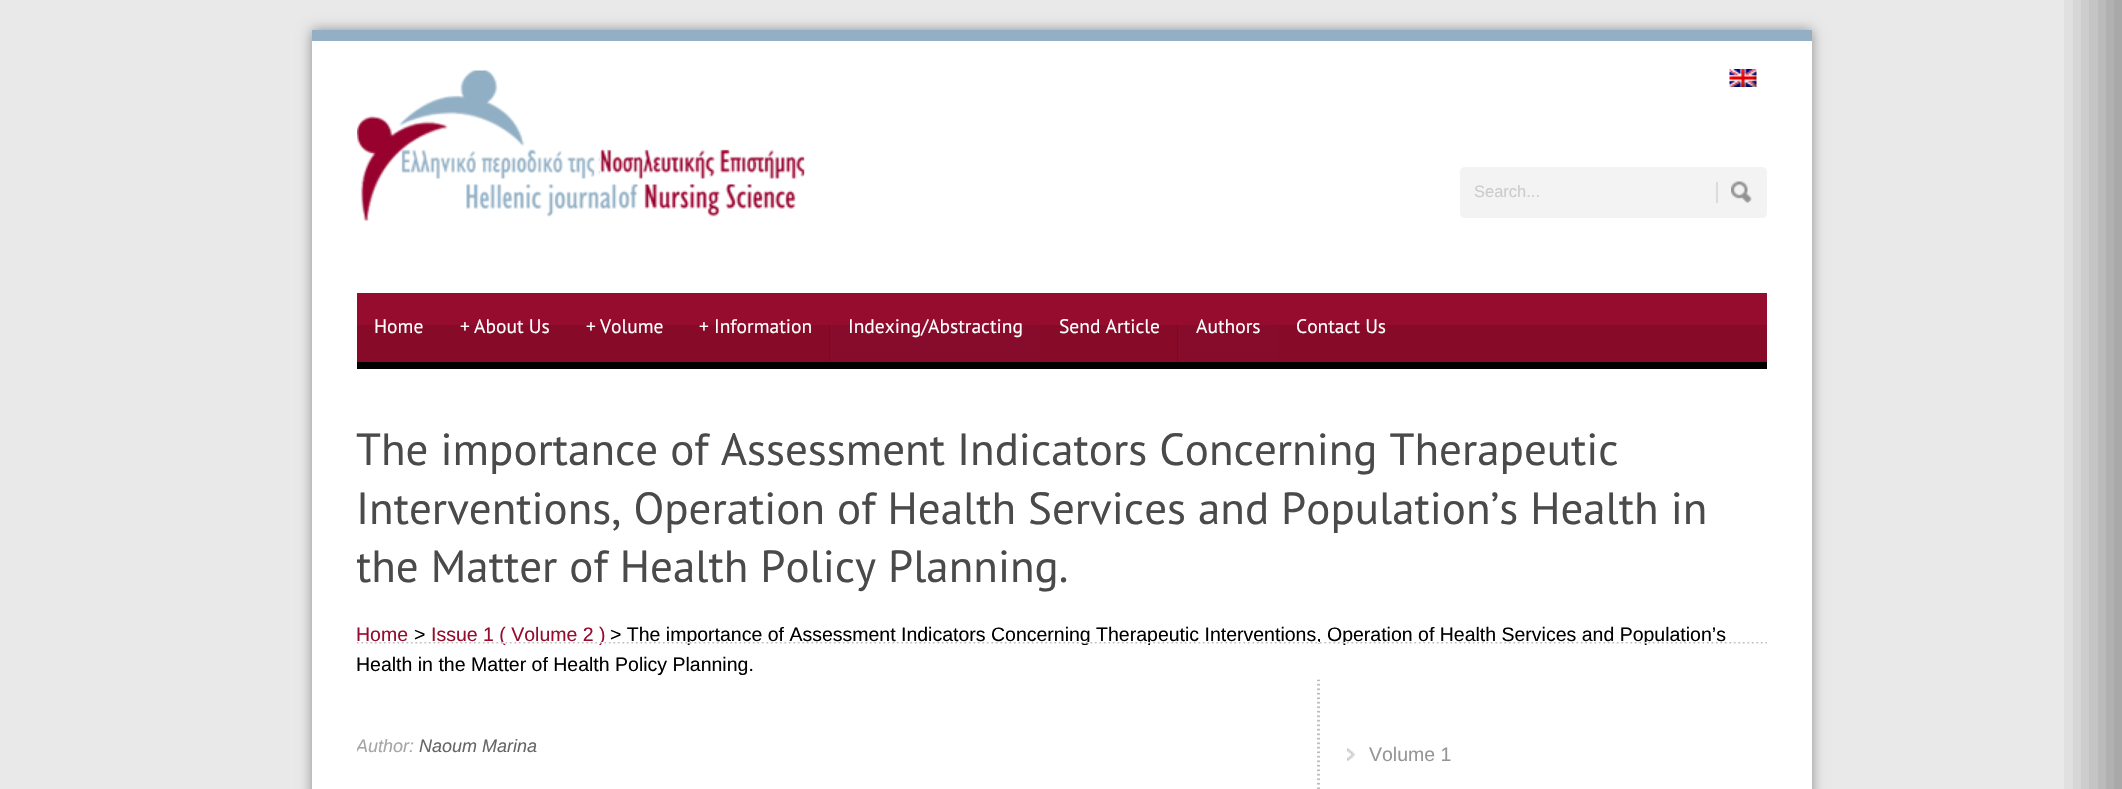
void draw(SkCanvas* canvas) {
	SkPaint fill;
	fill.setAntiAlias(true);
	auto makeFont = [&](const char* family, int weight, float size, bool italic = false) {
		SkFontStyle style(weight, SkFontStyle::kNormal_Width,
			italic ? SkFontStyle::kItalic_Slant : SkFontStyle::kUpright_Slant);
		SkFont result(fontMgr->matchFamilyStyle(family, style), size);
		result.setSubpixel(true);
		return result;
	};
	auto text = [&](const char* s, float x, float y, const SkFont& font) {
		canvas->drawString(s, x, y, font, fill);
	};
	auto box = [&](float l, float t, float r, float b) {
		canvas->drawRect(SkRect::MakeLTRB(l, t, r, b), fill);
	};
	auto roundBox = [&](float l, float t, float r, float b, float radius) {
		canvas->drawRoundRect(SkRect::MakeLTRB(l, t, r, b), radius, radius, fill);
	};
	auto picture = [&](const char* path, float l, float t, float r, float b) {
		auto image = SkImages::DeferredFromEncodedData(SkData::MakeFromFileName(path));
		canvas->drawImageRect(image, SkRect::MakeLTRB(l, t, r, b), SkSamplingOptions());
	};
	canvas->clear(0xFF555555);
	picture("image0.png", 0, 0, 2122, 789);
	fill.setColor(0x66000000);
	fill.setMaskFilter(SkMaskFilter::MakeBlur(kNormal_SkBlurStyle, 6));
	canvas->drawRect(SkRect::MakeLTRB(312, 30, 1812, 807), fill);
	fill.setMaskFilter(nullptr);
	fill.setColor(0xFF92AFC6);
	box(312, 30, 1812, 41);
	fill.setColor(0xFFFFFFFF);
	box(312, 41, 1812, 789);
	picture("image1.png", 357, 70, 805, 221);
	fill.setColor(0xFFF3F3F3);
	roundBox(1460, 167, 1767, 218, 5);
	picture("image2.png", 1731, 181, 1752, 203);
	fill.setColor(0xFFDBDBDB);
	box(1716, 182, 1718, 203);
	picture("image3.png", 1729, 69, 1757, 87);
	fill.setColor(0xFF960C2E);
	box(1278, 293, 1767, 325);
	fill.setColor(0xFF870B29);
	box(1278, 325, 1767, 362);
	fill.setColor(0xFF960C2E);
	box(357, 293, 830, 325);
	fill.setColor(0xFF870B29);
	box(357, 325, 830, 362);
	fill.setColor(0xFF960C2E);
	box(830, 293, 1041, 362);
	fill.setColor(0x1A000000);
	box(829, 325, 1041, 362);
	fill.setColor(0xFF960C2E);
	box(1041, 293, 1178, 325);
	fill.setColor(0xFF870B29);
	box(1041, 325, 1178, 362);
	fill.setColor(0xFF960C2E);
	box(1178, 293, 1278, 362);
	fill.setColor(0x1A000000);
	box(1177, 325, 1278, 362);
	fill.setColor(0xFF000000);
	box(357, 362, 1767, 369);
	picture("image5.png", 1317, 679, 1320, 789);
	picture("image6.png", 1347, 748, 1355, 762);
	auto font1 = makeFont("Liberation Sans", 400, 16.5f);
	fill.setColor(0xFFCCCCCC);
	text("Search...", 1474, 197, font1);
	auto font2 = makeFont("PT Sans", 400, 19.5f);
	fill.setColor(0xFFFFFFFF);
	text("Home", 374, 333, font2);
	text("+", 460, 333, font2);
	text("About Us", 474, 333, font2);
	text("+", 586, 333, font2);
	text("Volume", 600, 333, font2);
	text("+", 699, 333, font2);
	text("Information", 714, 333, font2);
	text("Indexing/Abstracting", 848, 333, font2);
	text("Send Article", 1059, 333, font2);
	text("Authors", 1196, 333, font2);
	text("Contact Us", 1296, 333, font2);
	auto font3 = makeFont("PT Sans", 400, 45);
	fill.setColor(0xFF4A4A4A);
	text("The importance of Assessment Indicators Concerning Therapeutic", 356, 465, font3);
	text("Interventions, Operation of Health Services and Population’s Health in", 356, 524, font3);
	canvas->save();
	canvas->clipRect(SkRect::MakeLTRB(357, 362, 1767, 644));
	text("the Matter of Health Policy Planning.", 356, 582, font3);
	canvas->restore();
	auto font4 = makeFont("Liberation Sans", 400, 19.5f);
	fill.setColor(0xFF960C2E);
	text("Home", 356, 641, font4);
	fill.setColor(0xFF000000);
	text(">", 414, 641, font4);
	fill.setColor(0xFF960C2E);
	text("Issue 1 ( Volume 2 )", 431, 641, font4);
	fill.setColor(0xFF000000);
	text("> The importance of Assessment Indicators Concerning Therapeutic Interventions, Operation of Health Services and Population’s", 610, 641, font4);
	picture("image4.png", 357, 642, 1767, 644);
	text("Health in the Matter of Health Policy Planning.", 356, 671, font4);
	canvas->save();
	canvas->clipRect(SkRect::MakeLTRB(357, 732, 1287, 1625));
	auto font5 = makeFont("Liberation Sans", 400, 18, true);
	fill.setColor(0xFFA6A6A6);
	text("Author:", 356, 752, font5);
	canvas->restore();
	fill.setColor(0xFF666666);
	text("Naoum Marina", 419, 752, font5);
	fill.setColor(0xFF969696);
	text("Volume 1", 1369, 761, font4);
}
